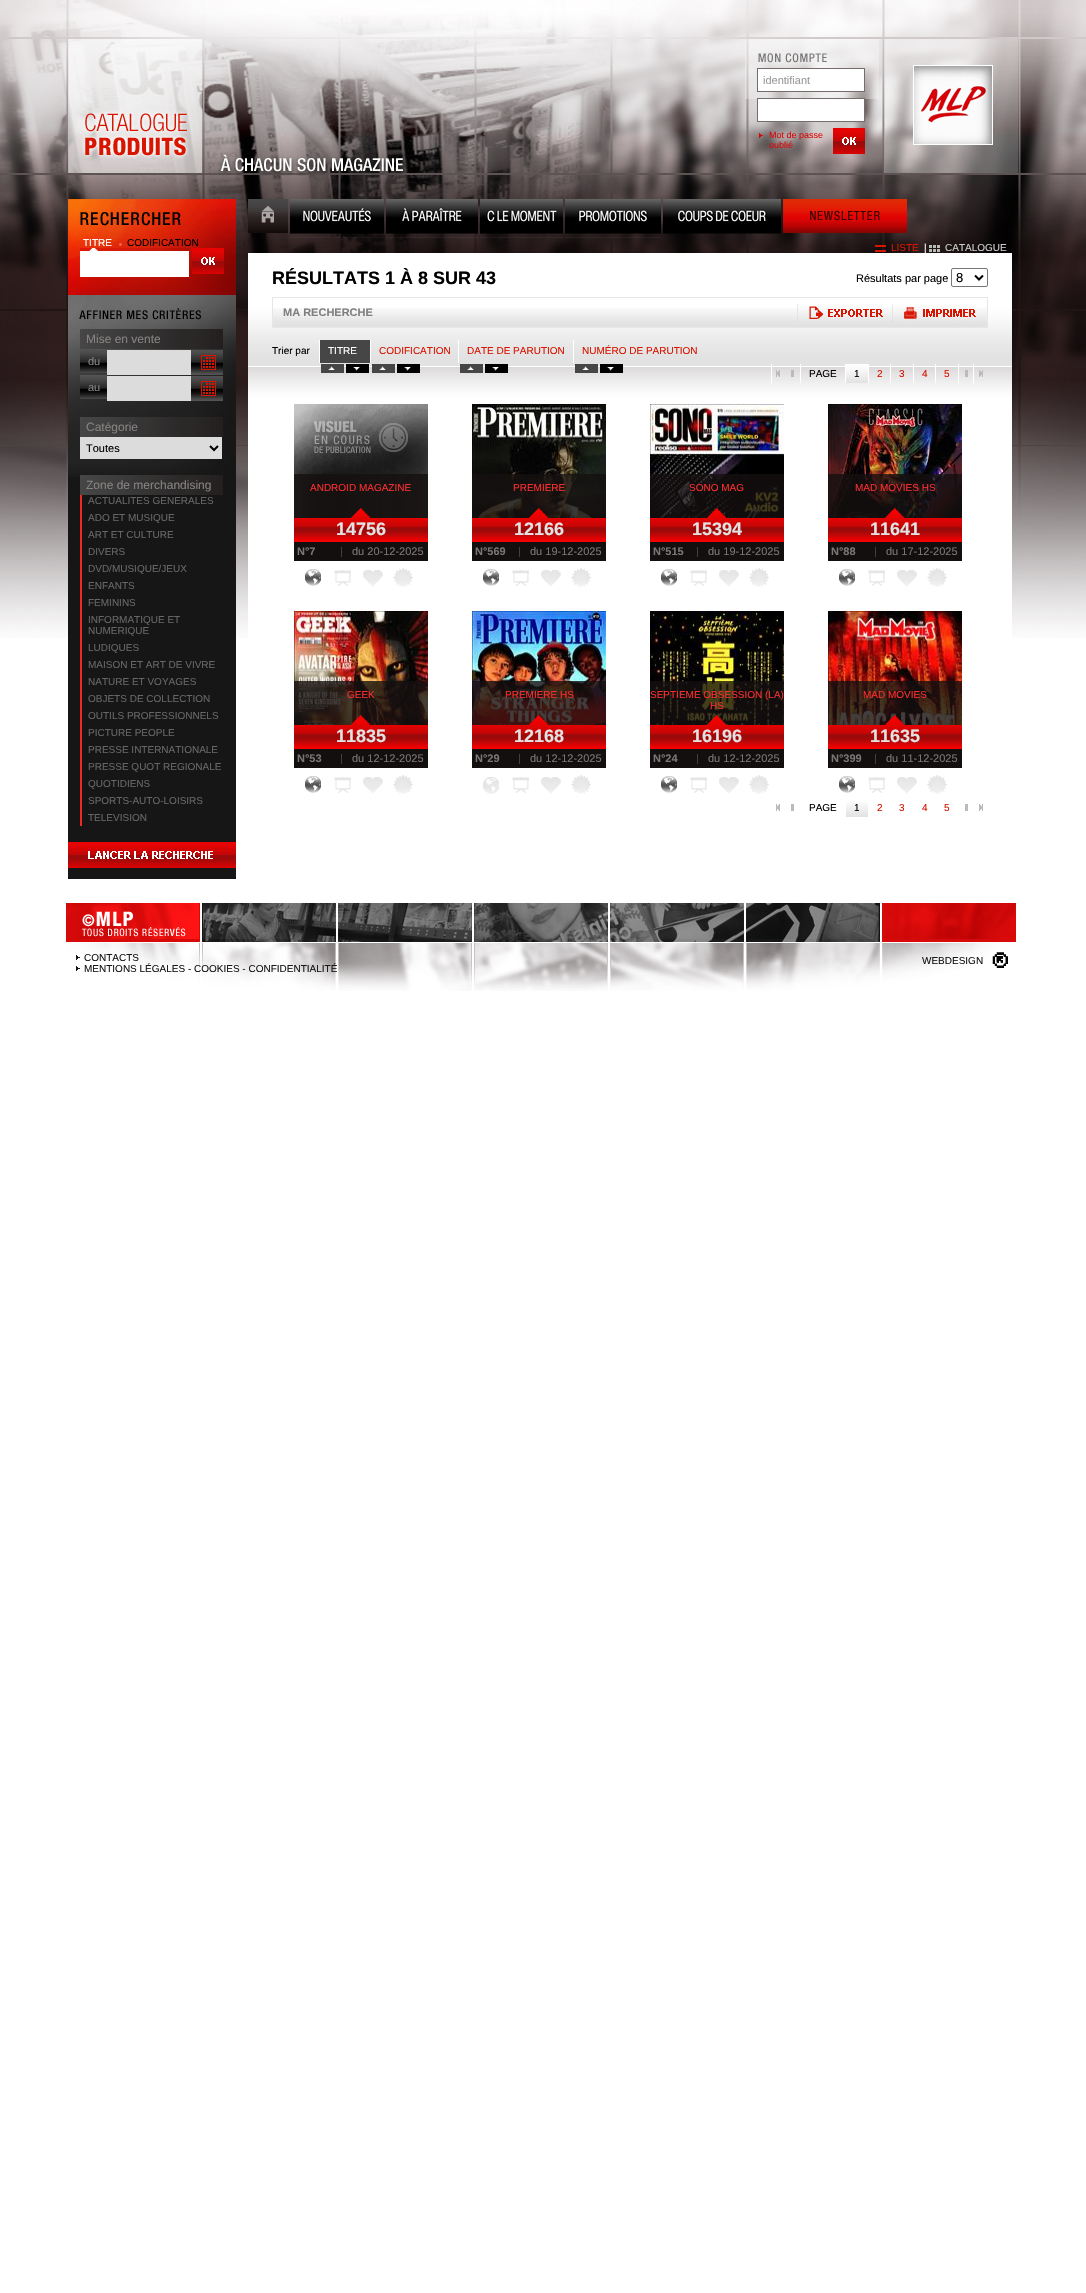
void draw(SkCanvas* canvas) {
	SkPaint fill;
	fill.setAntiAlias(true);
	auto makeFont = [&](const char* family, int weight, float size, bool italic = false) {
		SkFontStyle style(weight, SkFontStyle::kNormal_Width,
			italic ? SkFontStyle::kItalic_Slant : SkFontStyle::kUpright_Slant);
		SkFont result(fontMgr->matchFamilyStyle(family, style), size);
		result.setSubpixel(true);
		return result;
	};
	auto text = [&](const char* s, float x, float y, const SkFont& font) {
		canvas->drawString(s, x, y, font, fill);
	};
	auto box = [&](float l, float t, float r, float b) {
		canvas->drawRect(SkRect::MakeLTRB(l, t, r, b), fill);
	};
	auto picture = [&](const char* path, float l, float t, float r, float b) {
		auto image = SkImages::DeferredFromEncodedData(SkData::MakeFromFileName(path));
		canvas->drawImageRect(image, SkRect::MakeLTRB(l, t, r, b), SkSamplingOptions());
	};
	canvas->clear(0xFFFFFFFF);
	picture("image0.png", 0, 0, 1086, 638);
	picture("image1.png", 68, 39, 202, 173);
	picture("image2.png", 745, 39, 879, 99);
	fill.setColor(0xFFFFFFFF);
	canvas->drawRect(SkRect::MakeLTRB(757.5f, 68.5f, 864.5f, 91.5f), fill);
	fill.setStyle(SkPaint::kStroke_Style);
	fill.setStrokeWidth(1);
	fill.setColor(0xFF756D6D);
	canvas->drawRect(SkRect::MakeLTRB(757.5f, 68.5f, 864.5f, 91.5f), fill);
	fill.setStyle(SkPaint::kFill_Style);
	fill.setColor(0xFFFFFFFF);
	canvas->drawRect(SkRect::MakeLTRB(757.5f, 98.5f, 864.5f, 121.5f), fill);
	fill.setStyle(SkPaint::kStroke_Style);
	fill.setColor(0xFF756D6D);
	canvas->drawRect(SkRect::MakeLTRB(757.5f, 98.5f, 864.5f, 121.5f), fill);
	picture("image3.png", 759, 133, 763, 138);
	picture("image4.png", 833, 128, 865, 154);
	picture("image5.png", 884, 39, 1018, 173);
	picture("image6.png", 218, 154, 405, 176);
	picture("image7.png", 68, 199, 236, 295);
	picture("image8.png", 80, 248, 189, 277);
	picture("image4.png", 192, 248, 224, 274);
	fill.setStyle(SkPaint::kFill_Style);
	fill.setColor(0xFF161616);
	box(68, 477, 236, 879);
	picture("image9.png", 68, 295, 236, 477);
	picture("image10.png", 80, 329, 223, 349);
	picture("image11.png", 80, 349, 107, 373);
	fill.setColor(0xFFDCDCDC);
	box(107, 350, 191, 375);
	picture("image12.png", 191, 350, 223, 375);
	picture("image11.png", 80, 375, 107, 399);
	box(107, 376, 191, 401);
	picture("image12.png", 191, 376, 223, 401);
	picture("image10.png", 80, 417, 223, 437);
	box(80, 437, 222, 459);
	fill.setStyle(SkPaint::kStroke_Style);
	fill.setStrokeWidth(2);
	fill.setColor(0xFF000000);
	canvas->drawPath(SkPathBuilder().moveTo(210, 446).lineTo(214, 450).lineTo(218, 446).detach(), fill);
	picture("image10.png", 80, 475, 223, 495);
	fill.setStyle(SkPaint::kFill_Style);
	fill.setColor(0xFFED2A24);
	box(80, 495, 82, 826);
	picture("image13.png", 68, 842, 236, 868);
	picture("image14.png", 248, 199, 288, 233);
	picture("image15.png", 290, 199, 384, 238);
	picture("image16.png", 386, 199, 478, 238);
	picture("image17.png", 480, 199, 563, 238);
	picture("image18.png", 565, 199, 661, 238);
	picture("image19.png", 663, 199, 781, 234);
	picture("image20.png", 783, 199, 907, 233);
	picture("image21.png", 875, 245, 886, 252);
	picture("image22.png", 929, 245, 940, 252);
	picture("image23.png", 248, 253, 1012, 638);
	fill.setStyle(SkPaint::kStroke_Style);
	fill.setStrokeWidth(1);
	fill.setColor(0xFF767676);
	canvas->drawRoundRect(SkRect::MakeLTRB(951.5f, 268.5f, 987.5f, 286.5f), 1.5f, 1.5f, fill);
	fill.setStrokeWidth(2);
	fill.setColor(0xFF000000);
	canvas->drawPath(SkPathBuilder().moveTo(975, 275.5f).lineTo(979, 279.5f).lineTo(983, 275.5f).detach(), fill);
	picture("image24.png", 273, 308, 987, 327);
	fill.setStrokeWidth(1);
	fill.setColor(0xFFE6E6E6);
	canvas->drawRect(SkRect::MakeLTRB(272.5f, 297.5f, 987.5f, 327.5f), fill);
	picture("image25.png", 797, 304, 883, 323);
	picture("image26.png", 892, 304, 976, 323);
	fill.setStyle(SkPaint::kFill_Style);
	fill.setColor(0xFFFFFFFF);
	box(319, 340, 320, 363);
	fill.setColor(0xFF474646);
	box(320, 340, 370, 363);
	picture("image27.png", 321, 364, 344, 373);
	picture("image28.png", 346, 364, 369, 373);
	fill.setColor(0xFFFFFFFF);
	box(370, 340, 371, 363);
	picture("image27.png", 372, 364, 395, 373);
	picture("image28.png", 397, 364, 420, 373);
	box(458, 340, 459, 363);
	picture("image27.png", 460, 364, 483, 373);
	picture("image28.png", 485, 364, 508, 373);
	box(573, 340, 574, 363);
	picture("image27.png", 575, 364, 598, 373);
	picture("image28.png", 600, 364, 623, 373);
	picture("image29.png", 776, 370, 780, 377);
	box(771, 364, 772, 384);
	fill.setColor(0xFFBABCBB);
	box(791, 370, 794, 377);
	fill.setColor(0xFFFFFFFF);
	box(800, 364, 801, 383);
	box(845, 364, 846, 383);
	picture("image30.png", 846, 364, 868, 383);
	box(868, 364, 869, 383);
	box(890, 364, 891, 383);
	box(913, 364, 914, 383);
	box(935, 364, 936, 383);
	fill.setColor(0xFFBABCBB);
	box(965, 370, 968, 377);
	fill.setColor(0xFFFFFFFF);
	box(958, 364, 959, 384);
	picture("image31.png", 979, 370, 983, 377);
	box(973, 364, 974, 384);
	picture("image32.png", 294, 404, 428, 518);
	picture("image33.png", 294, 474, 428, 561);
	picture("image34.png", 305, 569, 321, 586);
	picture("image35.png", 334, 570, 351, 586);
	picture("image36.png", 363, 570, 383, 587);
	picture("image37.png", 393, 568, 413, 587);
	picture("image38.png", 472, 404, 606, 518);
	picture("image39.png", 472, 474, 606, 561);
	picture("image34.png", 483, 569, 499, 586);
	picture("image35.png", 512, 570, 529, 586);
	picture("image36.png", 541, 570, 561, 587);
	picture("image37.png", 571, 568, 591, 587);
	picture("image40.png", 650, 404, 784, 518);
	picture("image41.png", 650, 474, 784, 561);
	picture("image34.png", 661, 569, 677, 586);
	picture("image35.png", 690, 570, 707, 586);
	picture("image36.png", 719, 570, 739, 587);
	picture("image37.png", 749, 568, 769, 587);
	picture("image42.png", 828, 404, 962, 518);
	picture("image43.png", 828, 474, 962, 561);
	picture("image34.png", 839, 569, 855, 586);
	picture("image35.png", 868, 570, 885, 586);
	picture("image36.png", 897, 570, 917, 587);
	picture("image37.png", 927, 568, 947, 587);
	picture("image44.png", 294, 611, 428, 725);
	picture("image45.png", 294, 681, 428, 768);
	picture("image34.png", 305, 776, 321, 793);
	picture("image35.png", 334, 777, 351, 793);
	picture("image36.png", 363, 777, 383, 794);
	picture("image37.png", 393, 775, 413, 794);
	picture("image46.png", 472, 611, 606, 725);
	picture("image47.png", 472, 681, 606, 768);
	picture("image48.png", 483, 777, 499, 794);
	picture("image35.png", 512, 777, 529, 793);
	picture("image36.png", 541, 777, 561, 794);
	picture("image37.png", 571, 775, 591, 794);
	picture("image49.png", 650, 611, 784, 725);
	picture("image50.png", 650, 681, 784, 768);
	picture("image34.png", 661, 776, 677, 793);
	picture("image35.png", 690, 777, 707, 793);
	picture("image36.png", 719, 777, 739, 794);
	picture("image37.png", 749, 775, 769, 794);
	picture("image51.png", 828, 611, 962, 725);
	picture("image52.png", 828, 681, 962, 768);
	picture("image34.png", 839, 776, 855, 793);
	picture("image35.png", 868, 777, 885, 793);
	picture("image36.png", 897, 777, 917, 794);
	picture("image37.png", 927, 775, 947, 794);
	picture("image53.png", 776, 804, 780, 811);
	fill.setColor(0xFFBABCBB);
	box(791, 804, 794, 811);
	picture("image54.png", 846, 802, 868, 817);
	box(965, 804, 968, 811);
	picture("image55.png", 979, 804, 983, 811);
	picture("image56.png", 66, 903, 1016, 991);
	picture("image57.png", 76, 955, 80, 960);
	picture("image58.png", 76, 966, 80, 971);
	picture("image59.png", 992, 952, 1008, 968);
	auto font1 = makeFont("Liberation Sans", 400, 11);
	fill.setColor(0xFF999999);
	text("identifiant", 763, 84, font1);
	auto font2 = makeFont("Liberation Sans", 400, 9);
	fill.setColor(0xFFD70A0A);
	text("Mot de passe", 769, 138, font2);
	text("oublié", 769, 148, font2);
	auto font3 = makeFont("Liberation Sans", 400, 10);
	fill.setColor(0xFFFFFFFF);
	text("TITRE", 83, 246, font3);
	fill.setColor(0xFF000000);
	text("CODIFICATION", 127, 246, font3);
	auto font4 = makeFont("Liberation Sans", 400, 12);
	fill.setColor(0xFF868281);
	text("Mise en vente", 86, 343, font4);
	text("du", 88, 365, font1);
	text("au", 88, 391, font1);
	text("Catégorie", 86, 431, font4);
	fill.setColor(0xFF000000);
	text("Toutes", 86, 452, font1);
	fill.setColor(0xFF868281);
	text("Zone de merchandising", 86, 489, font4);
	fill.setColor(0xFF666666);
	text("ACTUALITES GENERALES", 88, 504, font3);
	text("ADO ET MUSIQUE", 88, 521, font3);
	text("ART ET CULTURE", 88, 538, font3);
	text("DIVERS", 88, 555, font3);
	text("DVD/MUSIQUE/JEUX", 88, 572, font3);
	text("ENFANTS", 88, 589, font3);
	text("FEMININS", 88, 606, font3);
	text("INFORMATIQUE ET", 88, 623, font3);
	text("NUMERIQUE", 88, 634, font3);
	text("LUDIQUES", 88, 651, font3);
	text("MAISON ET ART DE VIVRE", 88, 668, font3);
	text("NATURE ET VOYAGES", 88, 685, font3);
	text("OBJETS DE COLLECTION", 88, 702, font3);
	text("OUTILS PROFESSIONNELS", 88, 719, font3);
	text("PICTURE PEOPLE", 88, 736, font3);
	text("PRESSE INTERNATIONALE", 88, 753, font3);
	text("PRESSE QUOT REGIONALE", 88, 770, font3);
	text("QUOTIDIENS", 88, 787, font3);
	text("SPORTS-AUTO-LOISIRS", 88, 804, font3);
	text("TELEVISION", 88, 821, font3);
	fill.setColor(0xFFD81501);
	text("LISTE", 891, 251, font3);
	fill.setColor(0xFFFFFFFF);
	text("|", 924, 251, font3);
	fill.setColor(0xFFCCCCCC);
	text("CATALOGUE", 945, 251, font3);
	auto font5 = makeFont("Liberation Sans", 700, 18);
	fill.setColor(0xFF000000);
	text("RÉSULTATS 1 À 8 SUR 43", 272, 284, font5);
	text("Résultats par page", 856, 282, font1);
	auto font6 = makeFont("Liberation Sans", 400, 13);
	text("8", 956, 282, font6);
	auto font7 = makeFont("Liberation Sans", 700, 11);
	fill.setColor(0xFF7F7F7F);
	text("MA RECHERCHE", 283, 316, font7);
	fill.setColor(0xFF000000);
	text("Trier par", 272, 354, font3);
	fill.setColor(0xFFFFFFFF);
	text("TITRE", 328, 354, font3);
	fill.setColor(0xFFD81501);
	text("CODIFICATION", 379, 354, font3);
	text("DATE DE PARUTION", 467, 354, font3);
	text("NUMÉRO DE PARUTION", 582, 354, font3);
	fill.setColor(0xFF000000);
	text("PAGE", 809, 377, font3);
	text("1", 854, 377, font3);
	fill.setColor(0xFFD81501);
	text("2", 877, 377, font3);
	text("3", 899, 377, font3);
	text("4", 922, 377, font3);
	text("5", 944, 377, font3);
	fill.setColor(0xFFFA2D2D);
	text("ANDROID MAGAZINE", 310, 491, font3);
	fill.setColor(0xFFE2E2E2);
	text("14756", 336, 535, font5);
	fill.setColor(0xFF7B7676);
	text("N°7", 297, 555, font7);
	text("du 20-12-2025", 352, 555, font1);
	fill.setColor(0xFFFA2D2D);
	text("PREMIERE", 513, 491, font3);
	fill.setColor(0xFFE2E2E2);
	text("12166", 514, 535, font5);
	fill.setColor(0xFF7B7676);
	text("N°569", 475, 555, font7);
	text("du 19-12-2025", 530, 555, font1);
	fill.setColor(0xFFFA2D2D);
	text("SONO MAG", 689, 491, font3);
	fill.setColor(0xFFE2E2E2);
	text("15394", 692, 535, font5);
	fill.setColor(0xFF7B7676);
	text("N°515", 653, 555, font7);
	text("du 19-12-2025", 708, 555, font1);
	fill.setColor(0xFFFA2D2D);
	text("MAD MOVIES HS", 855, 491, font3);
	fill.setColor(0xFFE2E2E2);
	text("11641", 870, 535, font5);
	fill.setColor(0xFF7B7676);
	text("N°88", 831, 555, font7);
	text("du 17-12-2025", 886, 555, font1);
	fill.setColor(0xFFFA2D2D);
	text("GEEK", 347, 698, font3);
	fill.setColor(0xFFE2E2E2);
	text("11835", 336, 742, font5);
	fill.setColor(0xFF7B7676);
	text("N°53", 297, 762, font7);
	text("du 12-12-2025", 352, 762, font1);
	fill.setColor(0xFFFA2D2D);
	text("PREMIERE HS", 505, 698, font3);
	fill.setColor(0xFFE2E2E2);
	text("12168", 514, 742, font5);
	fill.setColor(0xFF7B7676);
	text("N°29", 475, 762, font7);
	text("du 12-12-2025", 530, 762, font1);
	fill.setColor(0xFFFA2D2D);
	text("SEPTIEME OBSESSION (LA)", 650, 698, font3);
	text("HS", 710, 709, font3);
	fill.setColor(0xFFE2E2E2);
	text("16196", 692, 742, font5);
	fill.setColor(0xFF7B7676);
	text("N°24", 653, 762, font7);
	text("du 12-12-2025", 708, 762, font1);
	fill.setColor(0xFFFA2D2D);
	text("MAD MOVIES", 863, 698, font3);
	fill.setColor(0xFFE2E2E2);
	text("11635", 870, 742, font5);
	fill.setColor(0xFF7B7676);
	text("N°399", 831, 762, font7);
	text("du 11-12-2025", 886, 762, font1);
	fill.setColor(0xFF000000);
	text("PAGE", 809, 811, font3);
	text("1", 854, 811, font3);
	fill.setColor(0xFFD81501);
	text("2", 877, 811, font3);
	text("3", 899, 811, font3);
	text("4", 922, 811, font3);
	text("5", 944, 811, font3);
	fill.setColor(0xFF171717);
	text("CONTACTS", 84, 961, font3);
	text("MENTIONS LÉGALES - COOKIES - CONFIDENTIALITÉ", 84, 972, font3);
	text("WEBDESIGN", 922, 964, font3);
}
